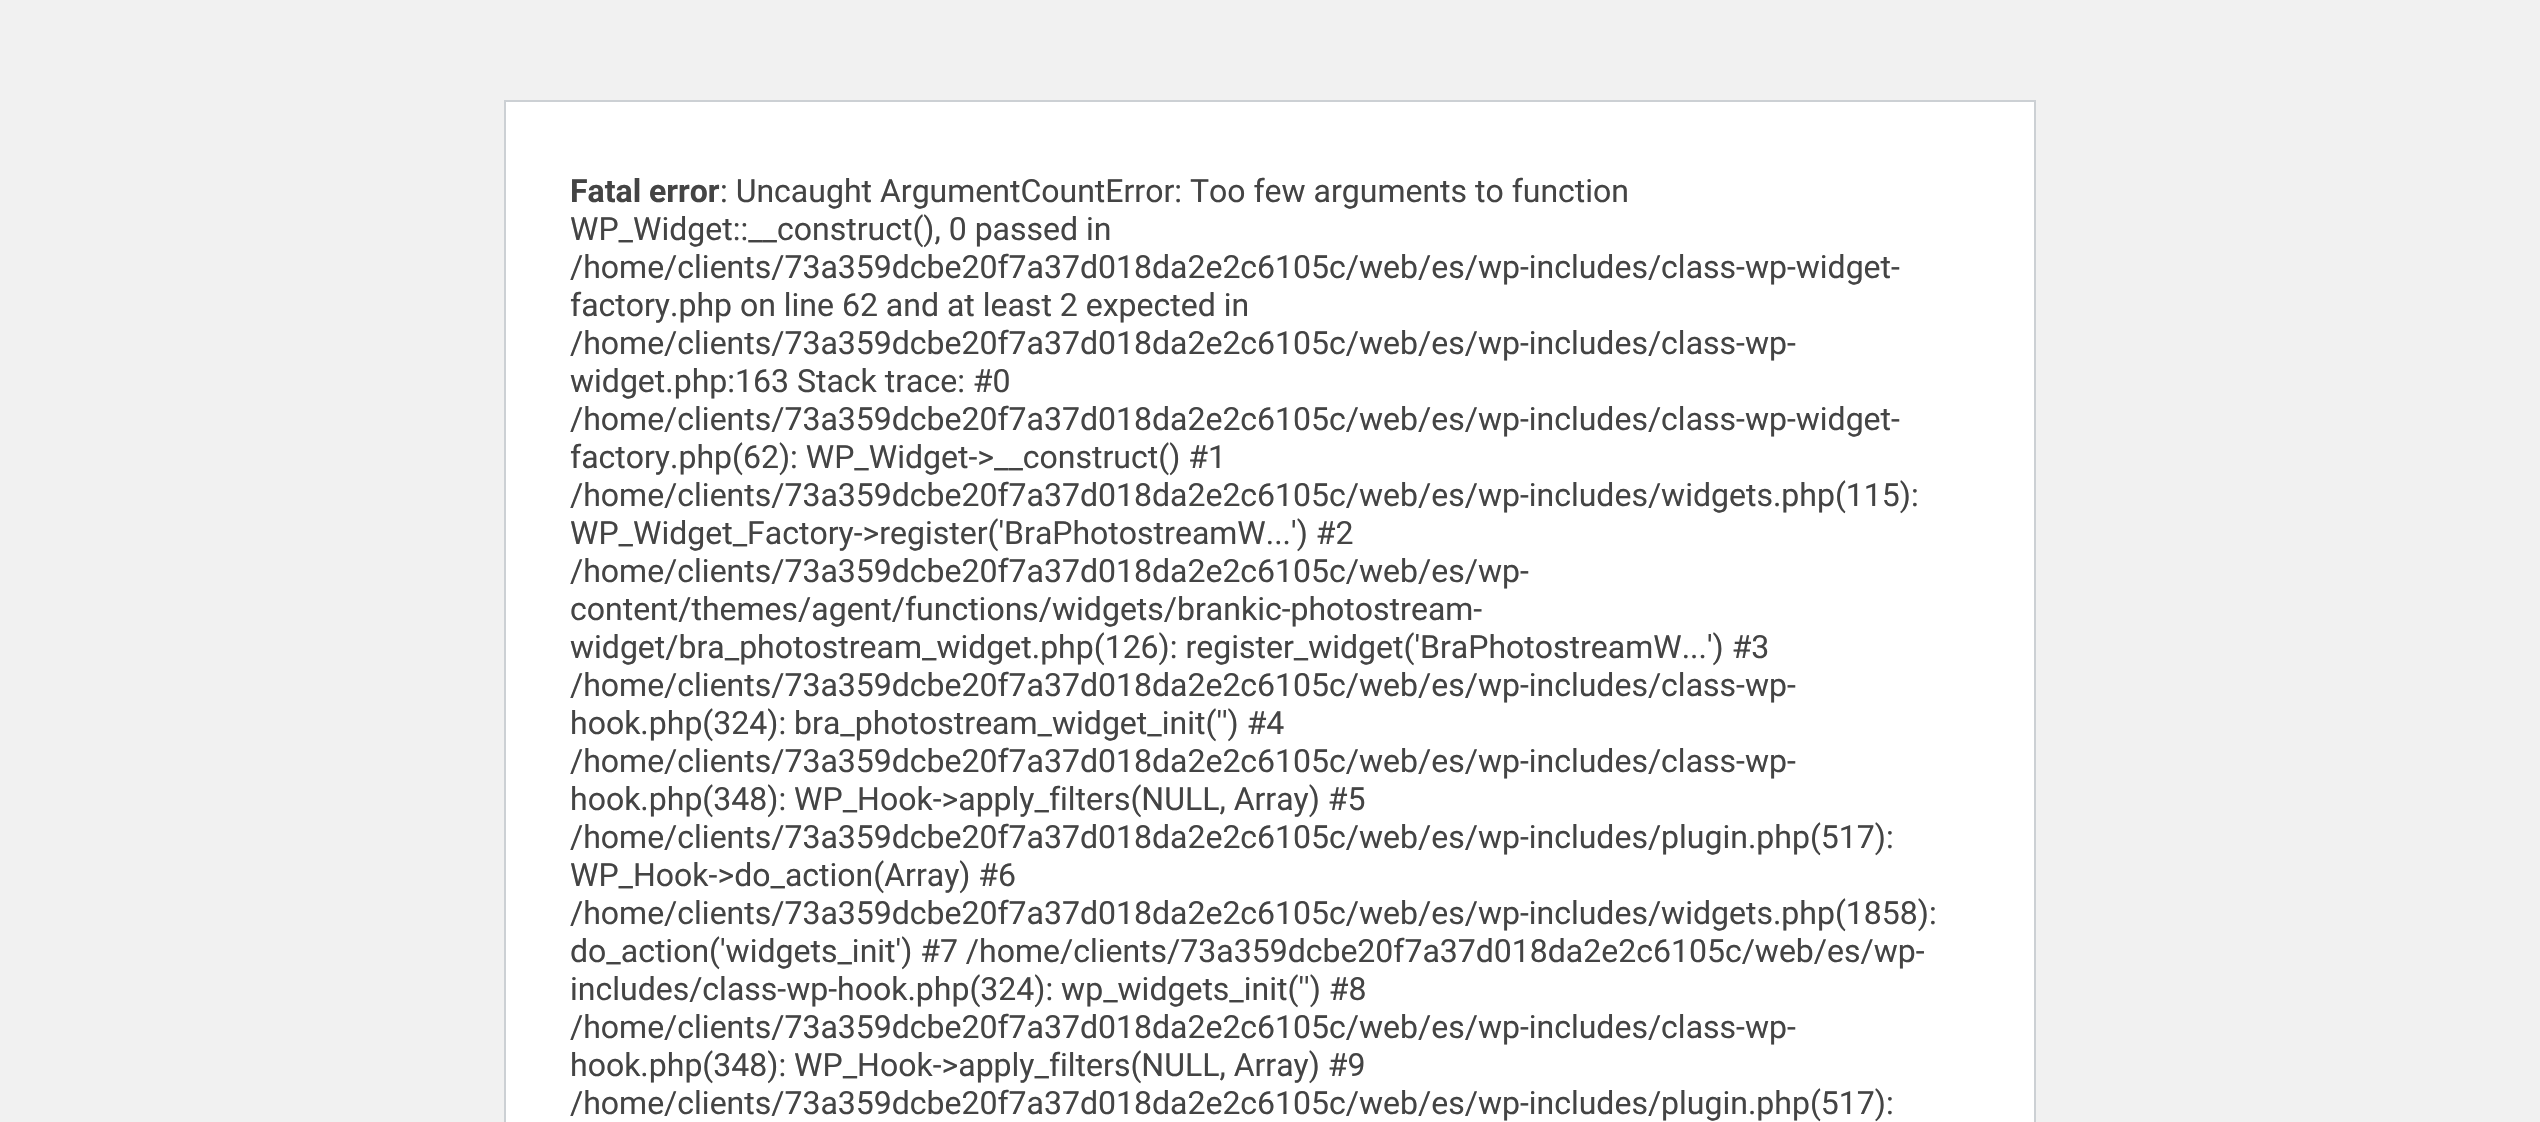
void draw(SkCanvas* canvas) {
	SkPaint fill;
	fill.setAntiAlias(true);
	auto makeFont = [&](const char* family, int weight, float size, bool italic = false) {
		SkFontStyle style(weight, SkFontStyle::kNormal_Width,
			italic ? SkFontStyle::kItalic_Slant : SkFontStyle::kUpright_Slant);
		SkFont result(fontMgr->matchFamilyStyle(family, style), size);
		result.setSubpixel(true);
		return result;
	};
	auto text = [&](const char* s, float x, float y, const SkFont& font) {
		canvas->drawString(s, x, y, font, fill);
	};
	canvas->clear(0xFFF1F1F1);
	fill.setColor(0xFFFFFFFF);
	canvas->drawRect(SkRect::MakeLTRB(505, 101, 2035, 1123), fill);
	fill.setStyle(SkPaint::kStroke_Style);
	fill.setStrokeWidth(2);
	fill.setColor(0xFFCCD0D4);
	canvas->drawRect(SkRect::MakeLTRB(505, 101, 2035, 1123), fill);
	auto font1 = makeFont("Roboto", 700, 32);
	fill.setStyle(SkPaint::kFill_Style);
	fill.setColor(0xFF444444);
	text("Fatal error", 570, 202, font1);
	auto font2 = makeFont("Roboto", 400, 32);
	text(": Uncaught ArgumentCountError: Too few arguments to function", 720, 202, font2);
	text("WP_Widget::__construct(), 0 passed in", 570, 240, font2);
	text("/home/clients/73a359dcbe20f7a37d018da2e2c6105c/web/es/wp-includes/class-wp-widget-", 570, 278, font2);
	text("factory.php on line 62 and at least 2 expected in", 570, 316, font2);
	text("/home/clients/73a359dcbe20f7a37d018da2e2c6105c/web/es/wp-includes/class-wp-", 570, 354, font2);
	text("widget.php:163 Stack trace: #0", 570, 392, font2);
	text("/home/clients/73a359dcbe20f7a37d018da2e2c6105c/web/es/wp-includes/class-wp-widget-", 570, 430, font2);
	text("factory.php(62): WP_Widget->__construct() #1", 570, 468, font2);
	text("/home/clients/73a359dcbe20f7a37d018da2e2c6105c/web/es/wp-includes/widgets.php(115):", 570, 506, font2);
	text("WP_Widget_Factory->register('BraPhotostreamW...') #2", 570, 544, font2);
	text("/home/clients/73a359dcbe20f7a37d018da2e2c6105c/web/es/wp-", 570, 582, font2);
	text("content/themes/agent/functions/widgets/brankic-photostream-", 570, 620, font2);
	text("widget/bra_photostream_widget.php(126): register_widget('BraPhotostreamW...') #3", 570, 658, font2);
	text("/home/clients/73a359dcbe20f7a37d018da2e2c6105c/web/es/wp-includes/class-wp-", 570, 696, font2);
	text("hook.php(324): bra_photostream_widget_init('') #4", 570, 734, font2);
	text("/home/clients/73a359dcbe20f7a37d018da2e2c6105c/web/es/wp-includes/class-wp-", 570, 772, font2);
	text("hook.php(348): WP_Hook->apply_filters(NULL, Array) #5", 570, 810, font2);
	text("/home/clients/73a359dcbe20f7a37d018da2e2c6105c/web/es/wp-includes/plugin.php(517):", 570, 848, font2);
	text("WP_Hook->do_action(Array) #6", 570, 886, font2);
	text("/home/clients/73a359dcbe20f7a37d018da2e2c6105c/web/es/wp-includes/widgets.php(1858):", 570, 924, font2);
	text("do_action('widgets_init') #7 /home/clients/73a359dcbe20f7a37d018da2e2c6105c/web/es/wp-", 570, 962, font2);
	text("includes/class-wp-hook.php(324): wp_widgets_init('') #8", 570, 1000, font2);
	text("/home/clients/73a359dcbe20f7a37d018da2e2c6105c/web/es/wp-includes/class-wp-", 570, 1038, font2);
	text("hook.php(348): WP_Hook->apply_filters(NULL, Array) #9", 570, 1076, font2);
	text("/home/clients/73a359dcbe20f7a37d018da2e2c6105c/web/es/wp-includes/plugin.php(517):", 570, 1114, font2);
}
